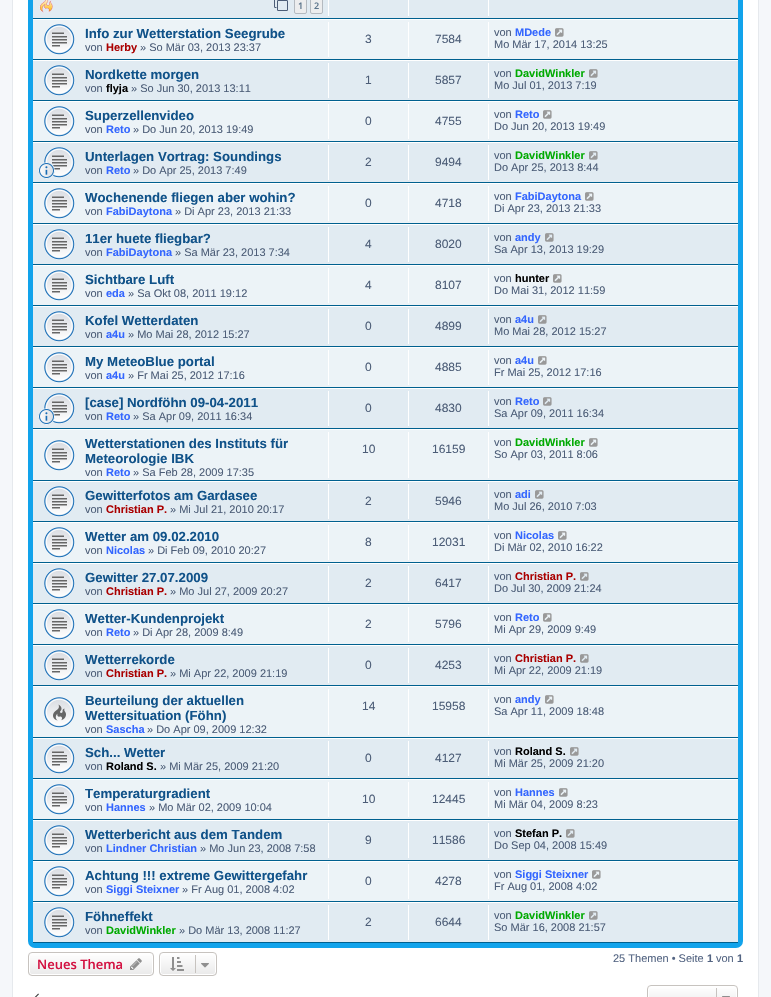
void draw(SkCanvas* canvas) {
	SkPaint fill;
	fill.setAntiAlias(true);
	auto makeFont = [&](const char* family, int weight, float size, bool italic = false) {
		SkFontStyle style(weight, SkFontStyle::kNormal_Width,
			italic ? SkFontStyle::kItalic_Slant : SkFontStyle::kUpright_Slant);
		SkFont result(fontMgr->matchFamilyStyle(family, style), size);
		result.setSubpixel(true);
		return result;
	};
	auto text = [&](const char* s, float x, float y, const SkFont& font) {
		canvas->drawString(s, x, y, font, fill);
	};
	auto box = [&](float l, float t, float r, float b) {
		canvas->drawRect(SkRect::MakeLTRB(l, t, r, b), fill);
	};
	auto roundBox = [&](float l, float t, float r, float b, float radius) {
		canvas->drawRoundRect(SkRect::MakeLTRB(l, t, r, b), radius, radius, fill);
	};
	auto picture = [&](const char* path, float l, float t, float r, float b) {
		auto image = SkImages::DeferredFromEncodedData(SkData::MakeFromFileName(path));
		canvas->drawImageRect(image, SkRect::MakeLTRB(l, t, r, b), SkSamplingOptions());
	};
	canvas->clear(0xFFF5F7FA);
	fill.setColor(0xFFFFFFFF);
	canvas->drawRect(SkRect::MakeLTRB(12.5f, -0.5f, 758.5f, 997.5f), fill);
	fill.setStyle(SkPaint::kStroke_Style);
	fill.setStrokeWidth(1);
	fill.setColor(0xFFE6E9ED);
	canvas->drawRect(SkRect::MakeLTRB(12.5f, -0.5f, 758.5f, 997.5f), fill);
	fill.setStyle(SkPaint::kFill_Style);
	{
		const SkColor colors[] = {0xFF6ACEFF, 0xFF0076B1, 0xFF12A3EB, 0xFF12A3EB};
		const float stops[] = {0, 0, 0.08f, 1};
		const SkPoint ends[] = {{385, -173}, {386, 948}};
		fill.setShader(SkGradientShader::MakeLinear(ends, colors, stops, 4, SkTileMode::kClamp));
		fill.setAlpha(255);
	}
	roundBox(28, -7, 743, 948, 7);
	fill.setShader(nullptr);
	fill.setColor(0xFFE1EBF2);
	box(33, 0, 738, 18);
	fill.setColor(0xFF00608F);
	box(33, 18, 738, 19);
	picture("image0.png", 39, 0, 53, 13);
	picture("image1.png", 274, 0, 288, 11);
	fill.setColor(0xFFECEDEE);
	canvas->drawRoundRect(SkRect::MakeLTRB(294.5f, -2.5f, 306.5f, 13.5f), 1.5f, 1.5f, fill);
	fill.setStyle(SkPaint::kStroke_Style);
	fill.setColor(0xFFB4BAC0);
	canvas->drawRoundRect(SkRect::MakeLTRB(294.5f, -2.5f, 306.5f, 13.5f), 1.5f, 1.5f, fill);
	fill.setStyle(SkPaint::kFill_Style);
	fill.setColor(0xFFECEDEE);
	canvas->drawRoundRect(SkRect::MakeLTRB(310.5f, -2.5f, 322.5f, 13.5f), 1.5f, 1.5f, fill);
	fill.setStyle(SkPaint::kStroke_Style);
	fill.setColor(0xFFB4BAC0);
	canvas->drawRoundRect(SkRect::MakeLTRB(310.5f, -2.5f, 322.5f, 13.5f), 1.5f, 1.5f, fill);
	fill.setStyle(SkPaint::kFill_Style);
	fill.setColor(0xFFFFFFFF);
	box(328, 0, 329, 16);
	box(408, 0, 409, 16);
	box(488, 0, 489, 16);
	fill.setColor(0xFFECF3F7);
	box(33, 20, 738, 59);
	fill.setColor(0xFFFFFFFF);
	box(33, 19, 738, 20);
	fill.setColor(0xFF00608F);
	box(33, 59, 738, 60);
	picture("image2.png", 44, 24, 75, 55);
	fill.setColor(0xFFFFFFFF);
	box(328, 22, 329, 57);
	box(408, 22, 409, 57);
	box(488, 22, 489, 57);
	picture("image3.png", 555, 28, 564, 37);
	fill.setColor(0xFFE1EBF2);
	box(33, 61, 738, 100);
	fill.setColor(0xFFFFFFFF);
	box(33, 60, 738, 61);
	fill.setColor(0xFF00608F);
	box(33, 100, 738, 101);
	picture("image4.png", 44, 65, 75, 96);
	fill.setColor(0xFFFFFFFF);
	box(328, 63, 329, 98);
	box(408, 63, 409, 98);
	box(488, 63, 489, 98);
	picture("image5.png", 589, 69, 598, 78);
	fill.setColor(0xFFECF3F7);
	box(33, 102, 738, 141);
	fill.setColor(0xFFFFFFFF);
	box(33, 101, 738, 102);
	fill.setColor(0xFF00608F);
	box(33, 141, 738, 142);
	picture("image2.png", 44, 106, 75, 137);
	fill.setColor(0xFFFFFFFF);
	box(328, 104, 329, 139);
	box(408, 104, 409, 139);
	box(488, 104, 489, 139);
	picture("image3.png", 543, 110, 552, 119);
	fill.setColor(0xFFE1EBF2);
	box(33, 143, 738, 182);
	fill.setColor(0xFFFFFFFF);
	box(33, 142, 738, 143);
	fill.setColor(0xFF00608F);
	box(33, 182, 738, 183);
	picture("image4.png", 44, 147, 75, 178);
	picture("image6.png", 38, 162, 55, 179);
	fill.setColor(0xFFFFFFFF);
	box(328, 145, 329, 180);
	box(408, 145, 409, 180);
	box(488, 145, 489, 180);
	picture("image5.png", 589, 151, 598, 160);
	fill.setColor(0xFFECF3F7);
	box(33, 184, 738, 223);
	fill.setColor(0xFFFFFFFF);
	box(33, 183, 738, 184);
	fill.setColor(0xFF00608F);
	box(33, 223, 738, 224);
	picture("image2.png", 44, 188, 75, 219);
	fill.setColor(0xFFFFFFFF);
	box(328, 186, 329, 221);
	box(408, 186, 409, 221);
	box(488, 186, 489, 221);
	picture("image3.png", 585, 192, 594, 201);
	fill.setColor(0xFFE1EBF2);
	box(33, 225, 738, 264);
	fill.setColor(0xFFFFFFFF);
	box(33, 224, 738, 225);
	fill.setColor(0xFF00608F);
	box(33, 264, 738, 265);
	picture("image4.png", 44, 229, 75, 260);
	fill.setColor(0xFFFFFFFF);
	box(328, 227, 329, 262);
	box(408, 227, 409, 262);
	box(488, 227, 489, 262);
	picture("image5.png", 545, 233, 554, 242);
	fill.setColor(0xFFECF3F7);
	box(33, 266, 738, 305);
	fill.setColor(0xFFFFFFFF);
	box(33, 265, 738, 266);
	fill.setColor(0xFF00608F);
	box(33, 305, 738, 306);
	picture("image2.png", 44, 270, 75, 301);
	fill.setColor(0xFFFFFFFF);
	box(328, 268, 329, 303);
	box(408, 268, 409, 303);
	box(488, 268, 489, 303);
	picture("image3.png", 553, 274, 562, 283);
	fill.setColor(0xFFE1EBF2);
	box(33, 307, 738, 346);
	fill.setColor(0xFFFFFFFF);
	box(33, 306, 738, 307);
	fill.setColor(0xFF00608F);
	box(33, 346, 738, 347);
	picture("image4.png", 44, 311, 75, 342);
	fill.setColor(0xFFFFFFFF);
	box(328, 309, 329, 344);
	box(408, 309, 409, 344);
	box(488, 309, 489, 344);
	picture("image5.png", 538, 315, 547, 324);
	fill.setColor(0xFFECF3F7);
	box(33, 348, 738, 387);
	fill.setColor(0xFFFFFFFF);
	box(33, 347, 738, 348);
	fill.setColor(0xFF00608F);
	box(33, 387, 738, 388);
	picture("image2.png", 44, 352, 75, 383);
	fill.setColor(0xFFFFFFFF);
	box(328, 350, 329, 385);
	box(408, 350, 409, 385);
	box(488, 350, 489, 385);
	picture("image3.png", 538, 356, 547, 365);
	fill.setColor(0xFFE1EBF2);
	box(33, 389, 738, 428);
	fill.setColor(0xFFFFFFFF);
	box(33, 388, 738, 389);
	fill.setColor(0xFF00608F);
	box(33, 428, 738, 429);
	picture("image4.png", 44, 393, 75, 424);
	picture("image6.png", 38, 408, 55, 425);
	fill.setColor(0xFFFFFFFF);
	box(328, 391, 329, 426);
	box(408, 391, 409, 426);
	box(488, 391, 489, 426);
	picture("image5.png", 543, 397, 552, 406);
	fill.setColor(0xFFECF3F7);
	box(33, 430, 738, 480);
	fill.setColor(0xFFFFFFFF);
	box(33, 429, 738, 430);
	fill.setColor(0xFF00608F);
	box(33, 480, 738, 481);
	picture("image2.png", 44, 440, 75, 471);
	fill.setColor(0xFFFFFFFF);
	box(328, 432, 329, 478);
	box(408, 432, 409, 478);
	box(488, 432, 489, 478);
	picture("image3.png", 589, 438, 598, 447);
	fill.setColor(0xFFE1EBF2);
	box(33, 482, 738, 521);
	fill.setColor(0xFFFFFFFF);
	box(33, 481, 738, 482);
	fill.setColor(0xFF00608F);
	box(33, 521, 738, 522);
	picture("image4.png", 44, 486, 75, 517);
	fill.setColor(0xFFFFFFFF);
	box(328, 484, 329, 519);
	box(408, 484, 409, 519);
	box(488, 484, 489, 519);
	picture("image5.png", 535, 490, 544, 499);
	fill.setColor(0xFFECF3F7);
	box(33, 523, 738, 562);
	fill.setColor(0xFFFFFFFF);
	box(33, 522, 738, 523);
	fill.setColor(0xFF00608F);
	box(33, 562, 738, 563);
	picture("image2.png", 44, 527, 75, 558);
	fill.setColor(0xFFFFFFFF);
	box(328, 525, 329, 560);
	box(408, 525, 409, 560);
	box(488, 525, 489, 560);
	picture("image3.png", 558, 531, 567, 540);
	fill.setColor(0xFFE1EBF2);
	box(33, 564, 738, 603);
	fill.setColor(0xFFFFFFFF);
	box(33, 563, 738, 564);
	fill.setColor(0xFF00608F);
	box(33, 603, 738, 604);
	picture("image4.png", 44, 568, 75, 599);
	fill.setColor(0xFFFFFFFF);
	box(328, 566, 329, 601);
	box(408, 566, 409, 601);
	box(488, 566, 489, 601);
	picture("image5.png", 580, 572, 589, 581);
	fill.setColor(0xFFECF3F7);
	box(33, 605, 738, 644);
	fill.setColor(0xFFFFFFFF);
	box(33, 604, 738, 605);
	fill.setColor(0xFF00608F);
	box(33, 644, 738, 645);
	picture("image2.png", 44, 609, 75, 640);
	fill.setColor(0xFFFFFFFF);
	box(328, 607, 329, 642);
	box(408, 607, 409, 642);
	box(488, 607, 489, 642);
	picture("image3.png", 543, 613, 552, 622);
	fill.setColor(0xFFE1EBF2);
	box(33, 646, 738, 685);
	fill.setColor(0xFFFFFFFF);
	box(33, 645, 738, 646);
	fill.setColor(0xFF00608F);
	box(33, 685, 738, 686);
	picture("image4.png", 44, 650, 75, 681);
	fill.setColor(0xFFFFFFFF);
	box(328, 648, 329, 683);
	box(408, 648, 409, 683);
	box(488, 648, 489, 683);
	picture("image5.png", 580, 654, 589, 663);
	fill.setColor(0xFFECF3F7);
	box(33, 687, 738, 737);
	fill.setColor(0xFFFFFFFF);
	box(33, 686, 738, 687);
	fill.setColor(0xFF00608F);
	box(33, 737, 738, 738);
	picture("image7.png", 44, 697, 75, 728);
	fill.setColor(0xFFFFFFFF);
	box(328, 689, 329, 735);
	box(408, 689, 409, 735);
	box(488, 689, 489, 735);
	picture("image3.png", 545, 695, 554, 704);
	fill.setColor(0xFFE1EBF2);
	box(33, 739, 738, 778);
	fill.setColor(0xFFFFFFFF);
	box(33, 738, 738, 739);
	fill.setColor(0xFF00608F);
	box(33, 778, 738, 779);
	picture("image4.png", 44, 743, 75, 774);
	fill.setColor(0xFFFFFFFF);
	box(328, 741, 329, 776);
	box(408, 741, 409, 776);
	box(488, 741, 489, 776);
	picture("image5.png", 570, 747, 579, 756);
	fill.setColor(0xFFECF3F7);
	box(33, 780, 738, 819);
	fill.setColor(0xFFFFFFFF);
	box(33, 779, 738, 780);
	fill.setColor(0xFF00608F);
	box(33, 819, 738, 820);
	picture("image2.png", 44, 784, 75, 815);
	fill.setColor(0xFFFFFFFF);
	box(328, 782, 329, 817);
	box(408, 782, 409, 817);
	box(488, 782, 489, 817);
	picture("image3.png", 559, 788, 568, 797);
	fill.setColor(0xFFE1EBF2);
	box(33, 821, 738, 860);
	fill.setColor(0xFFFFFFFF);
	box(33, 820, 738, 821);
	fill.setColor(0xFF00608F);
	box(33, 860, 738, 861);
	picture("image4.png", 44, 825, 75, 856);
	fill.setColor(0xFFFFFFFF);
	box(328, 823, 329, 858);
	box(408, 823, 409, 858);
	box(488, 823, 489, 858);
	picture("image5.png", 566, 829, 575, 838);
	fill.setColor(0xFFECF3F7);
	box(33, 862, 738, 901);
	fill.setColor(0xFFFFFFFF);
	box(33, 861, 738, 862);
	fill.setColor(0xFF00608F);
	box(33, 901, 738, 902);
	picture("image2.png", 44, 866, 75, 897);
	fill.setColor(0xFFFFFFFF);
	box(328, 864, 329, 899);
	box(408, 864, 409, 899);
	box(488, 864, 489, 899);
	picture("image3.png", 592, 870, 601, 879);
	fill.setColor(0xFFE1EBF2);
	box(33, 903, 738, 942);
	fill.setColor(0xFFFFFFFF);
	box(33, 902, 738, 903);
	fill.setColor(0xFF00608F);
	box(33, 942, 738, 943);
	picture("image4.png", 44, 907, 75, 938);
	fill.setColor(0xFFFFFFFF);
	box(328, 905, 329, 940);
	box(408, 905, 409, 940);
	box(488, 905, 489, 940);
	picture("image5.png", 589, 911, 598, 920);
	canvas->save();
	canvas->clipPath(SkPathBuilder().moveTo(32, 952).lineTo(150, 952).cubicTo(152, 952, 154, 954, 154, 956).lineTo(154, 972).cubicTo(154, 974, 152, 976, 150, 976).lineTo(32, 976).cubicTo(30, 976, 28, 974, 28, 972).lineTo(28, 956).cubicTo(28, 954, 30, 952, 32, 952).close().detach(), true);
	{
		const SkColor colors[] = {0xFFFFFFFF, 0xFFE9E9E9};
		const float stops[] = {0, 1};
		const SkPoint ends[] = {{91, 953}, {91, 975}};
		fill.setShader(SkGradientShader::MakeLinear(ends, colors, stops, 2, SkTileMode::kClamp));
		fill.setAlpha(255);
	}
	box(28, 953, 154, 975);
	canvas->restore();
	fill.setStyle(SkPaint::kStroke_Style);
	fill.setShader(nullptr);
	fill.setColor(0xFFFFFFFF);
	canvas->drawRoundRect(SkRect::MakeLTRB(29.5f, 953.5f, 152.5f, 974.5f), 2.5f, 2.5f, fill);
	fill.setColor(0xFFC7C3BF);
	canvas->drawRoundRect(SkRect::MakeLTRB(28.5f, 952.5f, 153.5f, 975.5f), 3.5f, 3.5f, fill);
	picture("image8.png", 130, 958, 142, 970);
	canvas->save();
	canvas->clipPath(SkPathBuilder().moveTo(163, 952).lineTo(213, 952).cubicTo(215, 952, 217, 954, 217, 956).lineTo(217, 972).cubicTo(217, 974, 215, 976, 213, 976).lineTo(163, 976).cubicTo(161, 976, 159, 974, 159, 972).lineTo(159, 956).cubicTo(159, 954, 161, 952, 163, 952).close().detach(), true);
	fill.setStyle(SkPaint::kFill_Style);
	{
		const SkColor colors[] = {0xFFFFFFFF, 0xFFE9E9E9};
		const float stops[] = {0, 1};
		const SkPoint ends[] = {{188, 953}, {188, 975}};
		fill.setShader(SkGradientShader::MakeLinear(ends, colors, stops, 2, SkTileMode::kClamp));
		fill.setAlpha(255);
	}
	box(159, 953, 217, 975);
	canvas->restore();
	fill.setStyle(SkPaint::kStroke_Style);
	fill.setShader(nullptr);
	fill.setColor(0xFFFFFFFF);
	canvas->drawRoundRect(SkRect::MakeLTRB(160.5f, 953.5f, 215.5f, 974.5f), 2.5f, 2.5f, fill);
	fill.setColor(0xFFC7C3BF);
	canvas->drawRoundRect(SkRect::MakeLTRB(159.5f, 952.5f, 216.5f, 975.5f), 3.5f, 3.5f, fill);
	picture("image9.png", 170, 957, 184, 971);
	fill.setStyle(SkPaint::kFill_Style);
	box(195, 955, 196, 973);
	picture("image10.png", 201, 963, 209, 968);
	picture("image11.png", 34, 993, 39, 997);
	canvas->save();
	canvas->clipPath(SkPathBuilder().moveTo(651, 985).lineTo(734, 985).cubicTo(736, 985, 738, 987, 738, 989).lineTo(738, 1005).cubicTo(738, 1007, 736, 1009, 734, 1009).lineTo(651, 1009).cubicTo(649, 1009, 647, 1007, 647, 1005).lineTo(647, 989).cubicTo(647, 987, 649, 985, 651, 985).close().detach(), true);
	{
		const SkColor colors[] = {0xFFFFFFFF, 0xFFE9E9E9};
		const float stops[] = {0, 1};
		const SkPoint ends[] = {{693, 986}, {693, 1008}};
		fill.setShader(SkGradientShader::MakeLinear(ends, colors, stops, 2, SkTileMode::kClamp));
		fill.setAlpha(255);
	}
	box(647, 986, 738, 997);
	canvas->restore();
	fill.setStyle(SkPaint::kStroke_Style);
	fill.setShader(nullptr);
	fill.setColor(0xFFFFFFFF);
	canvas->drawRoundRect(SkRect::MakeLTRB(648.5f, 986.5f, 736.5f, 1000.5f), 2.5f, 2.5f, fill);
	fill.setColor(0xFFC7C3BF);
	canvas->drawRoundRect(SkRect::MakeLTRB(647.5f, 985.5f, 737.5f, 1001.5f), 3.5f, 3.5f, fill);
	fill.setStyle(SkPaint::kFill_Style);
	box(716, 988, 717, 997);
	picture("image12.png", 722, 996, 730, 997);
	auto font1 = makeFont("Open Sans", 600, 9);
	fill.setColor(0xFF5C758C);
	text("1", 298, 9, font1);
	text("2", 314, 9, font1);
	auto font2 = makeFont("Liberation Sans", 700, 13.25f);
	fill.setColor(0xFF105289);
	text("Info zur Wetterstation Seegrube", 85, 38, font2);
	auto font3 = makeFont("Liberation Sans", 400, 11);
	fill.setColor(0xFF4C5D77);
	text("von", 85, 51, font3);
	auto font4 = makeFont("Liberation Sans", 700, 11);
	fill.setColor(0xFFAA0000);
	text("Herby", 106, 51, font4);
	fill.setColor(0xFF4C5D77);
	text("» So Mär 03, 2013 23:37", 140, 51, font3);
	auto font5 = makeFont("Liberation Sans", 400, 12);
	text("3", 365, 43, font5);
	text("7584", 435, 43, font5);
	text("von", 494, 36, font3);
	fill.setColor(0xFF3366FF);
	text("MDede", 515, 36, font4);
	fill.setColor(0xFF4C5D77);
	text("Mo Mär 17, 2014 13:25", 494, 48, font3);
	fill.setColor(0xFF105289);
	text("Nordkette morgen", 85, 79, font2);
	fill.setColor(0xFF4C5D77);
	text("von", 85, 92, font3);
	fill.setColor(0xFF000000);
	text("flyja", 106, 92, font4);
	fill.setColor(0xFF4C5D77);
	text("» So Jun 30, 2013 13:11", 131, 92, font3);
	text("1", 365, 84, font5);
	text("5857", 435, 84, font5);
	text("von", 494, 77, font3);
	fill.setColor(0xFF00AA00);
	text("DavidWinkler", 515, 77, font4);
	fill.setColor(0xFF4C5D77);
	text("Mo Jul 01, 2013 7:19", 494, 89, font3);
	fill.setColor(0xFF105289);
	text("Superzellenvideo", 85, 120, font2);
	fill.setColor(0xFF4C5D77);
	text("von", 85, 133, font3);
	fill.setColor(0xFF3366FF);
	text("Reto", 106, 133, font4);
	fill.setColor(0xFF4C5D77);
	text("» Do Jun 20, 2013 19:49", 133, 133, font3);
	text("0", 365, 125, font5);
	text("4755", 435, 125, font5);
	text("von", 494, 118, font3);
	fill.setColor(0xFF3366FF);
	text("Reto", 515, 118, font4);
	fill.setColor(0xFF4C5D77);
	text("Do Jun 20, 2013 19:49", 494, 130, font3);
	fill.setColor(0xFF105289);
	text("Unterlagen Vortrag: Soundings", 85, 161, font2);
	fill.setColor(0xFF4C5D77);
	text("von", 85, 174, font3);
	fill.setColor(0xFF3366FF);
	text("Reto", 106, 174, font4);
	fill.setColor(0xFF4C5D77);
	text("» Do Apr 25, 2013 7:49", 133, 174, font3);
	text("2", 365, 166, font5);
	text("9494", 435, 166, font5);
	text("von", 494, 159, font3);
	fill.setColor(0xFF00AA00);
	text("DavidWinkler", 515, 159, font4);
	fill.setColor(0xFF4C5D77);
	text("Do Apr 25, 2013 8:44", 494, 171, font3);
	fill.setColor(0xFF105289);
	text("Wochenende fliegen aber wohin?", 85, 202, font2);
	fill.setColor(0xFF4C5D77);
	text("von", 85, 215, font3);
	fill.setColor(0xFF3366FF);
	text("FabiDaytona", 106, 215, font4);
	fill.setColor(0xFF4C5D77);
	text("» Di Apr 23, 2013 21:33", 175, 215, font3);
	text("0", 365, 207, font5);
	text("4718", 435, 207, font5);
	text("von", 494, 200, font3);
	fill.setColor(0xFF3366FF);
	text("FabiDaytona", 515, 200, font4);
	fill.setColor(0xFF4C5D77);
	text("Di Apr 23, 2013 21:33", 494, 212, font3);
	fill.setColor(0xFF105289);
	text("11er huete fliegbar?", 85, 243, font2);
	fill.setColor(0xFF4C5D77);
	text("von", 85, 256, font3);
	fill.setColor(0xFF3366FF);
	text("FabiDaytona", 106, 256, font4);
	fill.setColor(0xFF4C5D77);
	text("» Sa Mär 23, 2013 7:34", 175, 256, font3);
	text("4", 365, 248, font5);
	text("8020", 435, 248, font5);
	text("von", 494, 241, font3);
	fill.setColor(0xFF3366FF);
	text("andy", 515, 241, font4);
	fill.setColor(0xFF4C5D77);
	text("Sa Apr 13, 2013 19:29", 494, 253, font3);
	fill.setColor(0xFF105289);
	text("Sichtbare Luft", 85, 284, font2);
	fill.setColor(0xFF4C5D77);
	text("von", 85, 297, font3);
	fill.setColor(0xFF3366FF);
	text("eda", 106, 297, font4);
	fill.setColor(0xFF4C5D77);
	text("» Sa Okt 08, 2011 19:12", 128, 297, font3);
	text("4", 365, 289, font5);
	text("8107", 435, 289, font5);
	text("von", 494, 282, font3);
	fill.setColor(0xFF000000);
	text("hunter", 515, 282, font4);
	fill.setColor(0xFF4C5D77);
	text("Do Mai 31, 2012 11:59", 494, 294, font3);
	fill.setColor(0xFF105289);
	text("Kofel Wetterdaten", 85, 325, font2);
	fill.setColor(0xFF4C5D77);
	text("von", 85, 338, font3);
	fill.setColor(0xFF3366FF);
	text("a4u", 106, 338, font4);
	fill.setColor(0xFF4C5D77);
	text("» Mo Mai 28, 2012 15:27", 128, 338, font3);
	text("0", 365, 330, font5);
	text("4899", 435, 330, font5);
	text("von", 494, 323, font3);
	fill.setColor(0xFF3366FF);
	text("a4u", 515, 323, font4);
	fill.setColor(0xFF4C5D77);
	text("Mo Mai 28, 2012 15:27", 494, 335, font3);
	fill.setColor(0xFF105289);
	text("My MeteoBlue portal", 85, 366, font2);
	fill.setColor(0xFF4C5D77);
	text("von", 85, 379, font3);
	fill.setColor(0xFF3366FF);
	text("a4u", 106, 379, font4);
	fill.setColor(0xFF4C5D77);
	text("» Fr Mai 25, 2012 17:16", 128, 379, font3);
	text("0", 365, 371, font5);
	text("4885", 435, 371, font5);
	text("von", 494, 364, font3);
	fill.setColor(0xFF3366FF);
	text("a4u", 515, 364, font4);
	fill.setColor(0xFF4C5D77);
	text("Fr Mai 25, 2012 17:16", 494, 376, font3);
	fill.setColor(0xFF105289);
	text("[case] Nordföhn 09-04-2011", 85, 407, font2);
	fill.setColor(0xFF4C5D77);
	text("von", 85, 420, font3);
	fill.setColor(0xFF3366FF);
	text("Reto", 106, 420, font4);
	fill.setColor(0xFF4C5D77);
	text("» Sa Apr 09, 2011 16:34", 133, 420, font3);
	text("0", 365, 412, font5);
	text("4830", 435, 412, font5);
	text("von", 494, 405, font3);
	fill.setColor(0xFF3366FF);
	text("Reto", 515, 405, font4);
	fill.setColor(0xFF4C5D77);
	text("Sa Apr 09, 2011 16:34", 494, 417, font3);
	fill.setColor(0xFF105289);
	text("Wetterstationen des Instituts für", 85, 448, font2);
	text("Meteorologie IBK", 85, 463, font2);
	fill.setColor(0xFF4C5D77);
	text("von", 85, 476, font3);
	fill.setColor(0xFF3366FF);
	text("Reto", 106, 476, font4);
	fill.setColor(0xFF4C5D77);
	text("» Sa Feb 28, 2009 17:35", 133, 476, font3);
	text("10", 362, 453, font5);
	text("16159", 432, 453, font5);
	text("von", 494, 446, font3);
	fill.setColor(0xFF00AA00);
	text("DavidWinkler", 515, 446, font4);
	fill.setColor(0xFF4C5D77);
	text("So Apr 03, 2011 8:06", 494, 458, font3);
	fill.setColor(0xFF105289);
	text("Gewitterfotos am Gardasee", 85, 500, font2);
	fill.setColor(0xFF4C5D77);
	text("von", 85, 513, font3);
	fill.setColor(0xFFAA0000);
	text("Christian P.", 106, 513, font4);
	fill.setColor(0xFF4C5D77);
	text("» Mi Jul 21, 2010 20:17", 170, 513, font3);
	text("2", 365, 505, font5);
	text("5946", 435, 505, font5);
	text("von", 494, 498, font3);
	fill.setColor(0xFF3366FF);
	text("adi", 515, 498, font4);
	fill.setColor(0xFF4C5D77);
	text("Mo Jul 26, 2010 7:03", 494, 510, font3);
	fill.setColor(0xFF105289);
	text("Wetter am 09.02.2010", 85, 541, font2);
	fill.setColor(0xFF4C5D77);
	text("von", 85, 554, font3);
	fill.setColor(0xFF3366FF);
	text("Nicolas", 106, 554, font4);
	fill.setColor(0xFF4C5D77);
	text("» Di Feb 09, 2010 20:27", 148, 554, font3);
	text("8", 365, 546, font5);
	text("12031", 432, 546, font5);
	text("von", 494, 539, font3);
	fill.setColor(0xFF3366FF);
	text("Nicolas", 515, 539, font4);
	fill.setColor(0xFF4C5D77);
	text("Di Mär 02, 2010 16:22", 494, 551, font3);
	fill.setColor(0xFF105289);
	text("Gewitter 27.07.2009", 85, 582, font2);
	fill.setColor(0xFF4C5D77);
	text("von", 85, 595, font3);
	fill.setColor(0xFFAA0000);
	text("Christian P.", 106, 595, font4);
	fill.setColor(0xFF4C5D77);
	text("» Mo Jul 27, 2009 20:27", 170, 595, font3);
	text("2", 365, 587, font5);
	text("6417", 435, 587, font5);
	text("von", 494, 580, font3);
	fill.setColor(0xFFAA0000);
	text("Christian P.", 515, 580, font4);
	fill.setColor(0xFF4C5D77);
	text("Do Jul 30, 2009 21:24", 494, 592, font3);
	fill.setColor(0xFF105289);
	text("Wetter-Kundenprojekt", 85, 623, font2);
	fill.setColor(0xFF4C5D77);
	text("von", 85, 636, font3);
	fill.setColor(0xFF3366FF);
	text("Reto", 106, 636, font4);
	fill.setColor(0xFF4C5D77);
	text("» Di Apr 28, 2009 8:49", 133, 636, font3);
	text("2", 365, 628, font5);
	text("5796", 435, 628, font5);
	text("von", 494, 621, font3);
	fill.setColor(0xFF3366FF);
	text("Reto", 515, 621, font4);
	fill.setColor(0xFF4C5D77);
	text("Mi Apr 29, 2009 9:49", 494, 633, font3);
	fill.setColor(0xFF105289);
	text("Wetterrekorde", 85, 664, font2);
	fill.setColor(0xFF4C5D77);
	text("von", 85, 677, font3);
	fill.setColor(0xFFAA0000);
	text("Christian P.", 106, 677, font4);
	fill.setColor(0xFF4C5D77);
	text("» Mi Apr 22, 2009 21:19", 170, 677, font3);
	text("0", 365, 669, font5);
	text("4253", 435, 669, font5);
	text("von", 494, 662, font3);
	fill.setColor(0xFFAA0000);
	text("Christian P.", 515, 662, font4);
	fill.setColor(0xFF4C5D77);
	text("Mi Apr 22, 2009 21:19", 494, 674, font3);
	fill.setColor(0xFF105289);
	text("Beurteilung der aktuellen", 85, 705, font2);
	text("Wettersituation (Föhn)", 85, 720, font2);
	fill.setColor(0xFF4C5D77);
	text("von", 85, 733, font3);
	fill.setColor(0xFF3366FF);
	text("Sascha", 106, 733, font4);
	fill.setColor(0xFF4C5D77);
	text("» Do Apr 09, 2009 12:32", 147, 733, font3);
	text("14", 362, 710, font5);
	text("15958", 432, 710, font5);
	text("von", 494, 703, font3);
	fill.setColor(0xFF3366FF);
	text("andy", 515, 703, font4);
	fill.setColor(0xFF4C5D77);
	text("Sa Apr 11, 2009 18:48", 494, 715, font3);
	fill.setColor(0xFF105289);
	text("Sch... Wetter", 85, 757, font2);
	fill.setColor(0xFF4C5D77);
	text("von", 85, 770, font3);
	fill.setColor(0xFF000000);
	text("Roland S.", 106, 770, font4);
	fill.setColor(0xFF4C5D77);
	text("» Mi Mär 25, 2009 21:20", 160, 770, font3);
	text("0", 365, 762, font5);
	text("4127", 435, 762, font5);
	text("von", 494, 755, font3);
	fill.setColor(0xFF000000);
	text("Roland S.", 515, 755, font4);
	fill.setColor(0xFF4C5D77);
	text("Mi Mär 25, 2009 21:20", 494, 767, font3);
	fill.setColor(0xFF105289);
	text("Temperaturgradient", 85, 798, font2);
	fill.setColor(0xFF4C5D77);
	text("von", 85, 811, font3);
	fill.setColor(0xFF3366FF);
	text("Hannes", 106, 811, font4);
	fill.setColor(0xFF4C5D77);
	text("» Mo Mär 02, 2009 10:04", 149, 811, font3);
	text("10", 362, 803, font5);
	text("12445", 432, 803, font5);
	text("von", 494, 796, font3);
	fill.setColor(0xFF3366FF);
	text("Hannes", 515, 796, font4);
	fill.setColor(0xFF4C5D77);
	text("Mi Mär 04, 2009 8:23", 494, 808, font3);
	fill.setColor(0xFF105289);
	text("Wetterbericht aus dem Tandem", 85, 839, font2);
	fill.setColor(0xFF4C5D77);
	text("von", 85, 852, font3);
	fill.setColor(0xFF3366FF);
	text("Lindner Christian", 106, 852, font4);
	fill.setColor(0xFF4C5D77);
	text("» Mo Jun 23, 2008 7:58", 200, 852, font3);
	text("9", 365, 844, font5);
	text("11586", 432, 844, font5);
	text("von", 494, 837, font3);
	fill.setColor(0xFF000000);
	text("Stefan P.", 515, 837, font4);
	fill.setColor(0xFF4C5D77);
	text("Do Sep 04, 2008 15:49", 494, 849, font3);
	fill.setColor(0xFF105289);
	text("Achtung !!! extreme Gewittergefahr", 85, 880, font2);
	fill.setColor(0xFF4C5D77);
	text("von", 85, 893, font3);
	fill.setColor(0xFF3366FF);
	text("Siggi Steixner", 106, 893, font4);
	fill.setColor(0xFF4C5D77);
	text("» Fr Aug 01, 2008 4:02", 182, 893, font3);
	text("0", 365, 885, font5);
	text("4278", 435, 885, font5);
	text("von", 494, 878, font3);
	fill.setColor(0xFF3366FF);
	text("Siggi Steixner", 515, 878, font4);
	fill.setColor(0xFF4C5D77);
	text("Fr Aug 01, 2008 4:02", 494, 890, font3);
	fill.setColor(0xFF105289);
	text("Föhneffekt", 85, 921, font2);
	fill.setColor(0xFF4C5D77);
	text("von", 85, 934, font3);
	fill.setColor(0xFF00AA00);
	text("DavidWinkler", 106, 934, font4);
	fill.setColor(0xFF4C5D77);
	text("» Do Mär 13, 2008 11:27", 179, 934, font3);
	text("2", 365, 926, font5);
	text("6644", 435, 926, font5);
	text("von", 494, 919, font3);
	fill.setColor(0xFF00AA00);
	text("DavidWinkler", 515, 919, font4);
	fill.setColor(0xFF4C5D77);
	text("So Mär 16, 2008 21:57", 494, 931, font3);
	auto font6 = makeFont("Open Sans", 600, 13);
	fill.setColor(0xFFD31141);
	text("Neues Thema", 37, 969, font6);
	fill.setColor(0xFF536482);
	text("25 Themen • Seite", 613, 962, font3);
	text("1", 707, 962, font4);
	text("von", 716, 962, font3);
	text("1", 737, 962, font4);
}
